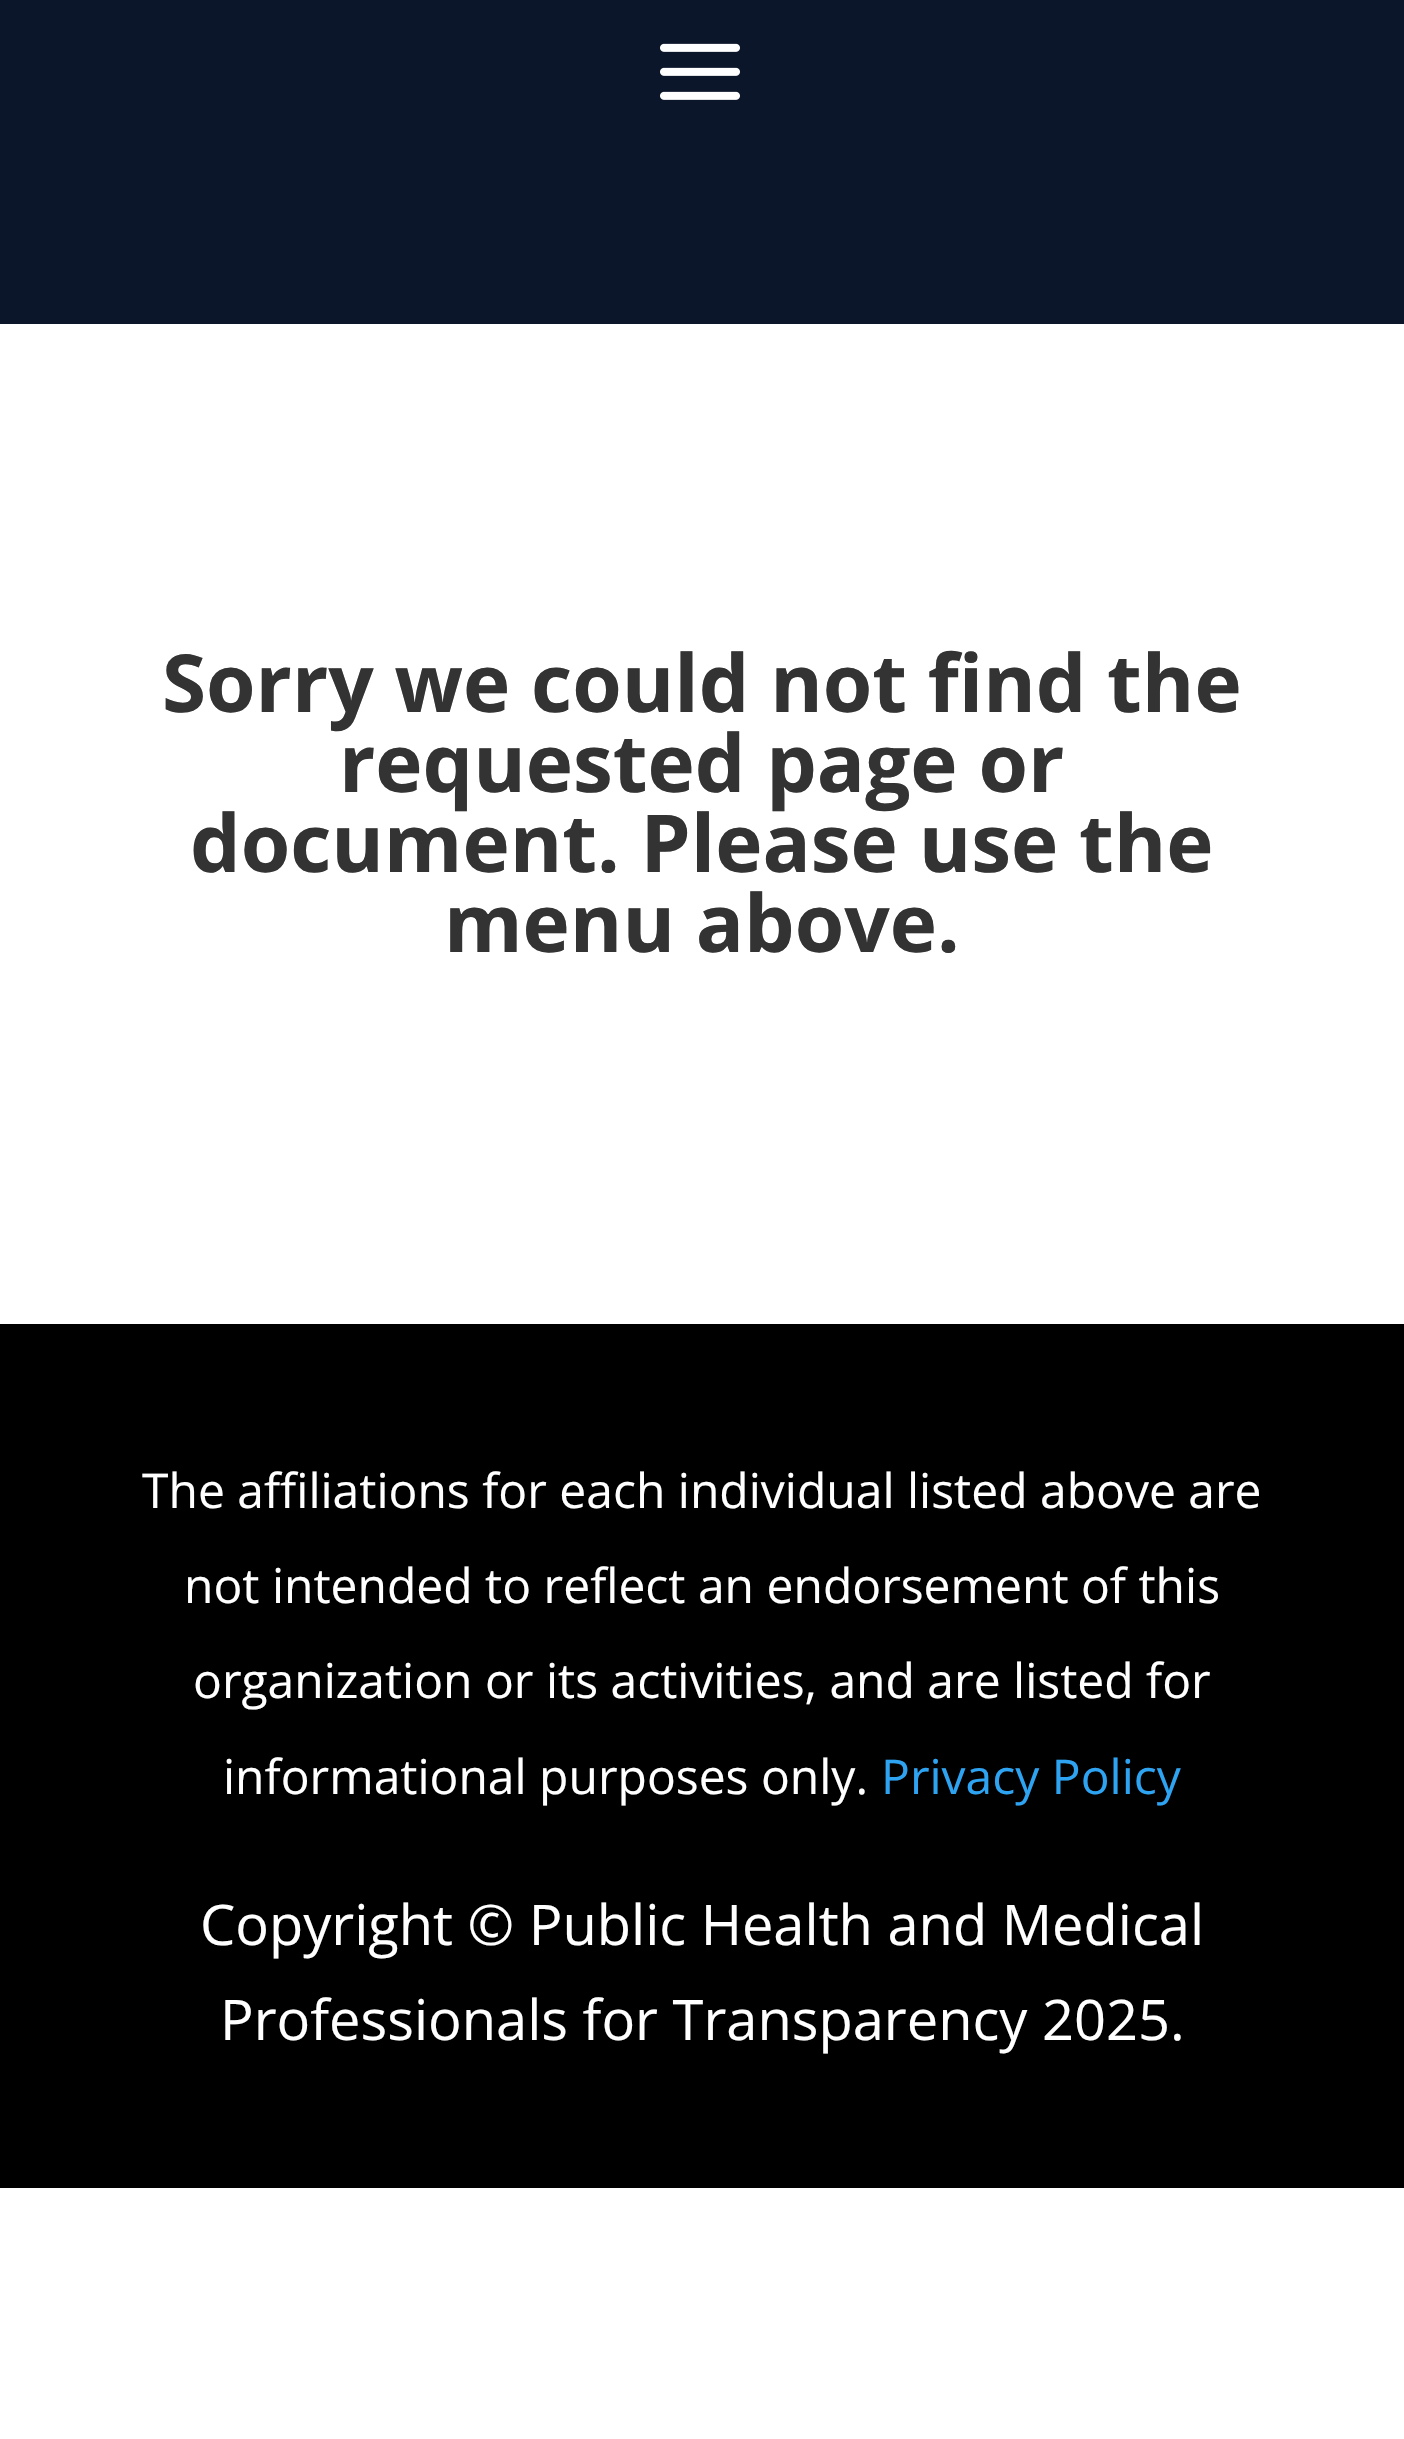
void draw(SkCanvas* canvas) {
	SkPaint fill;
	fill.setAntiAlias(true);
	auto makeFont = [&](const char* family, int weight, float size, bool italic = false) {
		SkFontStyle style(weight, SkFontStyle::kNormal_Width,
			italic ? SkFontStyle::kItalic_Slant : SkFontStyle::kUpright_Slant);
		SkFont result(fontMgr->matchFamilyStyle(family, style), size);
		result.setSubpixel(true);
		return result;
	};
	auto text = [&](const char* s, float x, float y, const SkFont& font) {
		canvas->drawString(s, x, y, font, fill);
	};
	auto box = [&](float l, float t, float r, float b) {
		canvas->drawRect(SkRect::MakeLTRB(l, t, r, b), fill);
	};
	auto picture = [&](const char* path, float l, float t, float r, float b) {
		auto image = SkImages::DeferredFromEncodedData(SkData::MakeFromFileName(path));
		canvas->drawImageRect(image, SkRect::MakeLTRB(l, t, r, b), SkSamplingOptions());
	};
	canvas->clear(0xFFFFFFFF);
	fill.setColor(0xFF0B162A);
	box(0, 0, 1404, 324);
	picture("image0.png", 660, 43, 740, 100);
	fill.setColor(0xFF000000);
	box(0, 1324, 1404, 2188);
	auto font1 = makeFont("Open Sans", 700, 80);
	fill.setColor(0xFF333333);
	text("Sorry we could not find the", 162, 712, font1);
	text("requested page or", 339, 792, font1);
	text("document. Please use the", 190, 872, font1);
	text("menu above.", 444, 952, font1);
	auto font2 = makeFont("Open Sans", 400, 48);
	fill.setColor(0xFFFFFFFF);
	text("The affiliations for each individual listed above are", 142, 1508, font2);
	text("not intended to reflect an endorsement of this", 184, 1603, font2);
	text("organization or its activities, and are listed for", 193, 1698, font2);
	text("informational purposes only.", 223, 1794, font2);
	fill.setColor(0xFF2EA3F2);
	text("Privacy Policy", 881, 1794, font2);
	auto font3 = makeFont("Open Sans", 400, 56);
	fill.setColor(0xFFFFFFFF);
	text("Copyright © Public Health and Medical", 200, 1945, font3);
	text("Professionals for Transparency 2025.", 220, 2040, font3);
}
